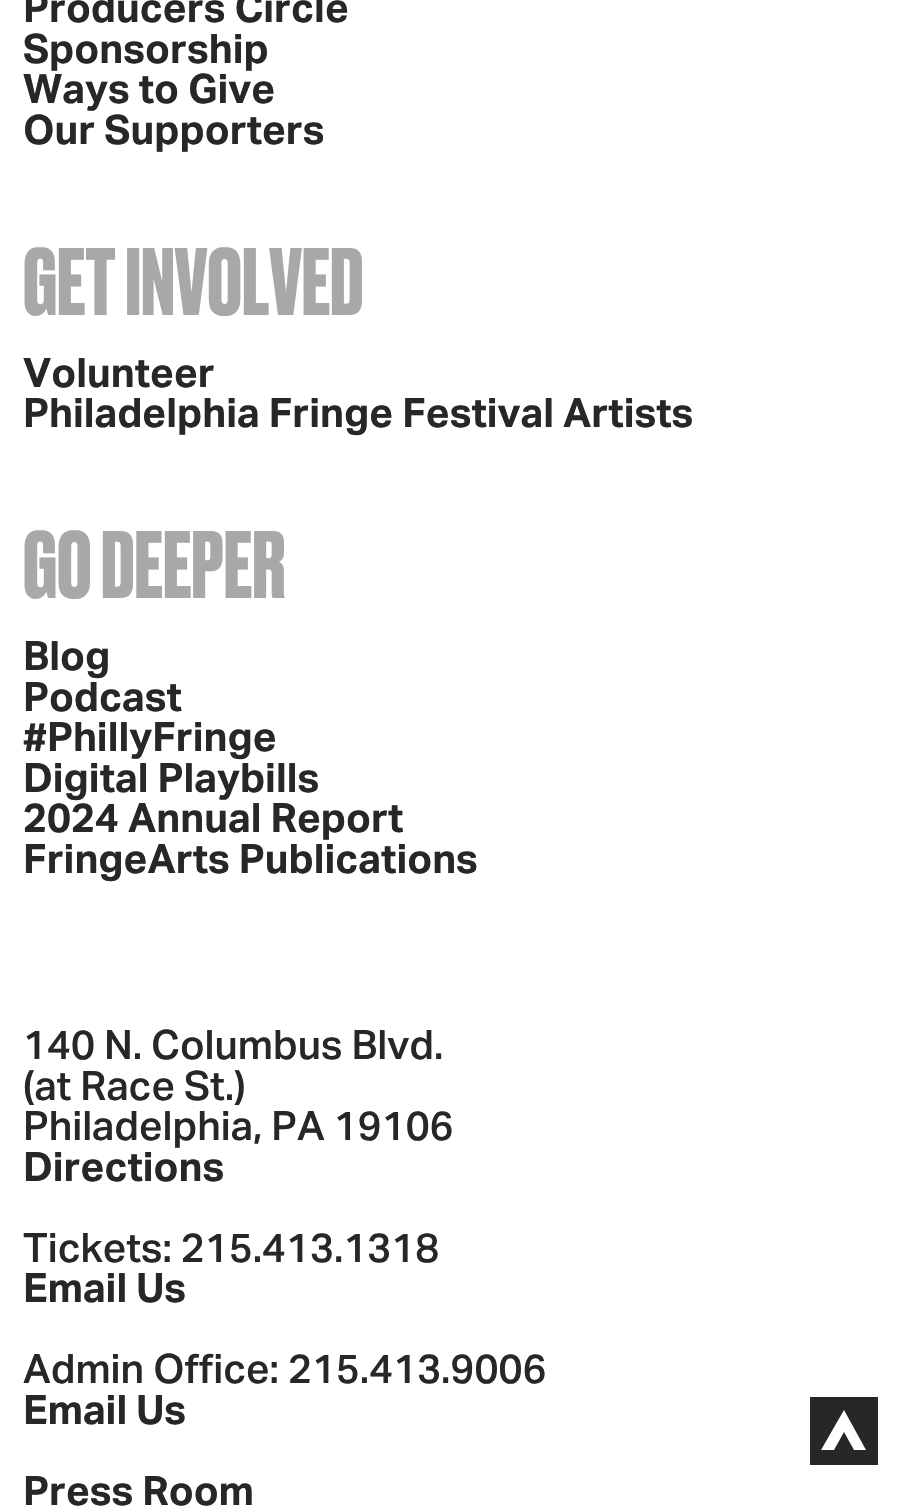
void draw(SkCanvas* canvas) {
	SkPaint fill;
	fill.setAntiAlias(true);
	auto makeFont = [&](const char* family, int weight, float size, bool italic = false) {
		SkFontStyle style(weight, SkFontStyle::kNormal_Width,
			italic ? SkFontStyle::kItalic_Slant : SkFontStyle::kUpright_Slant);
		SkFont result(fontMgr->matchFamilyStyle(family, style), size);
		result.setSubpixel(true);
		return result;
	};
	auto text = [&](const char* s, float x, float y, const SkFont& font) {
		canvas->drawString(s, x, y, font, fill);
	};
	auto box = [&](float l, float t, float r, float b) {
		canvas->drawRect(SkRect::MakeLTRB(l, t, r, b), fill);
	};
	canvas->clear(0xFFFFFFFF);
	fill.setColor(0xFF272727);
	box(810, 1397, 878, 1465);
	fill.setColor(0xFFFFFFFF);
	canvas->drawPath(SkPathBuilder().moveTo(844, 1410).lineTo(866, 1450).lineTo(854, 1450).lineTo(844, 1432).lineTo(834, 1450).lineTo(821, 1450).close().detach(), fill);
	auto font1 = makeFont("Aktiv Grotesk", 700, 40.5f);
	fill.setColor(0xFF272727);
	text("Producers Circle", 23, 22, font1);
	text("Sponsorship", 23, 63, font1);
	text("Ways to Give", 23, 103, font1);
	text("Our Supporters", 23, 144, font1);
	auto font2 = makeFont("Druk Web", 700, 90);
	fill.setColor(0xFFA7A8A9);
	text("GET INVOLVED", 23, 315, font2);
	fill.setColor(0xFF272727);
	text("Volunteer", 23, 387, font1);
	text("Philadelphia Fringe Festival Artists", 23, 427, font1);
	fill.setColor(0xFFA7A8A9);
	text("GO DEEPER", 23, 598, font2);
	fill.setColor(0xFF272727);
	text("Blog", 23, 670, font1);
	text("Podcast", 23, 711, font1);
	text("#PhillyFringe", 23, 751, font1);
	text("Digital Playbills", 23, 792, font1);
	text("2024 Annual Report", 23, 832, font1);
	text("FringeArts Publications", 23, 873, font1);
	auto font3 = makeFont("Aktiv Grotesk", 500, 40.5f);
	text("140 N. Columbus Blvd.", 23, 1059, font3);
	text("(at Race St.)", 23, 1100, font3);
	text("Philadelphia, PA 19106", 23, 1140, font3);
	text("Directions", 23, 1181, font1);
	text("Tickets: 215.413.1318", 23, 1262, font3);
	text("Email Us", 23, 1302, font1);
	text("Admin Office: 215.413.9006", 23, 1383, font3);
	text("Email Us", 23, 1424, font1);
	text("Press Room", 23, 1505, font1);
}
